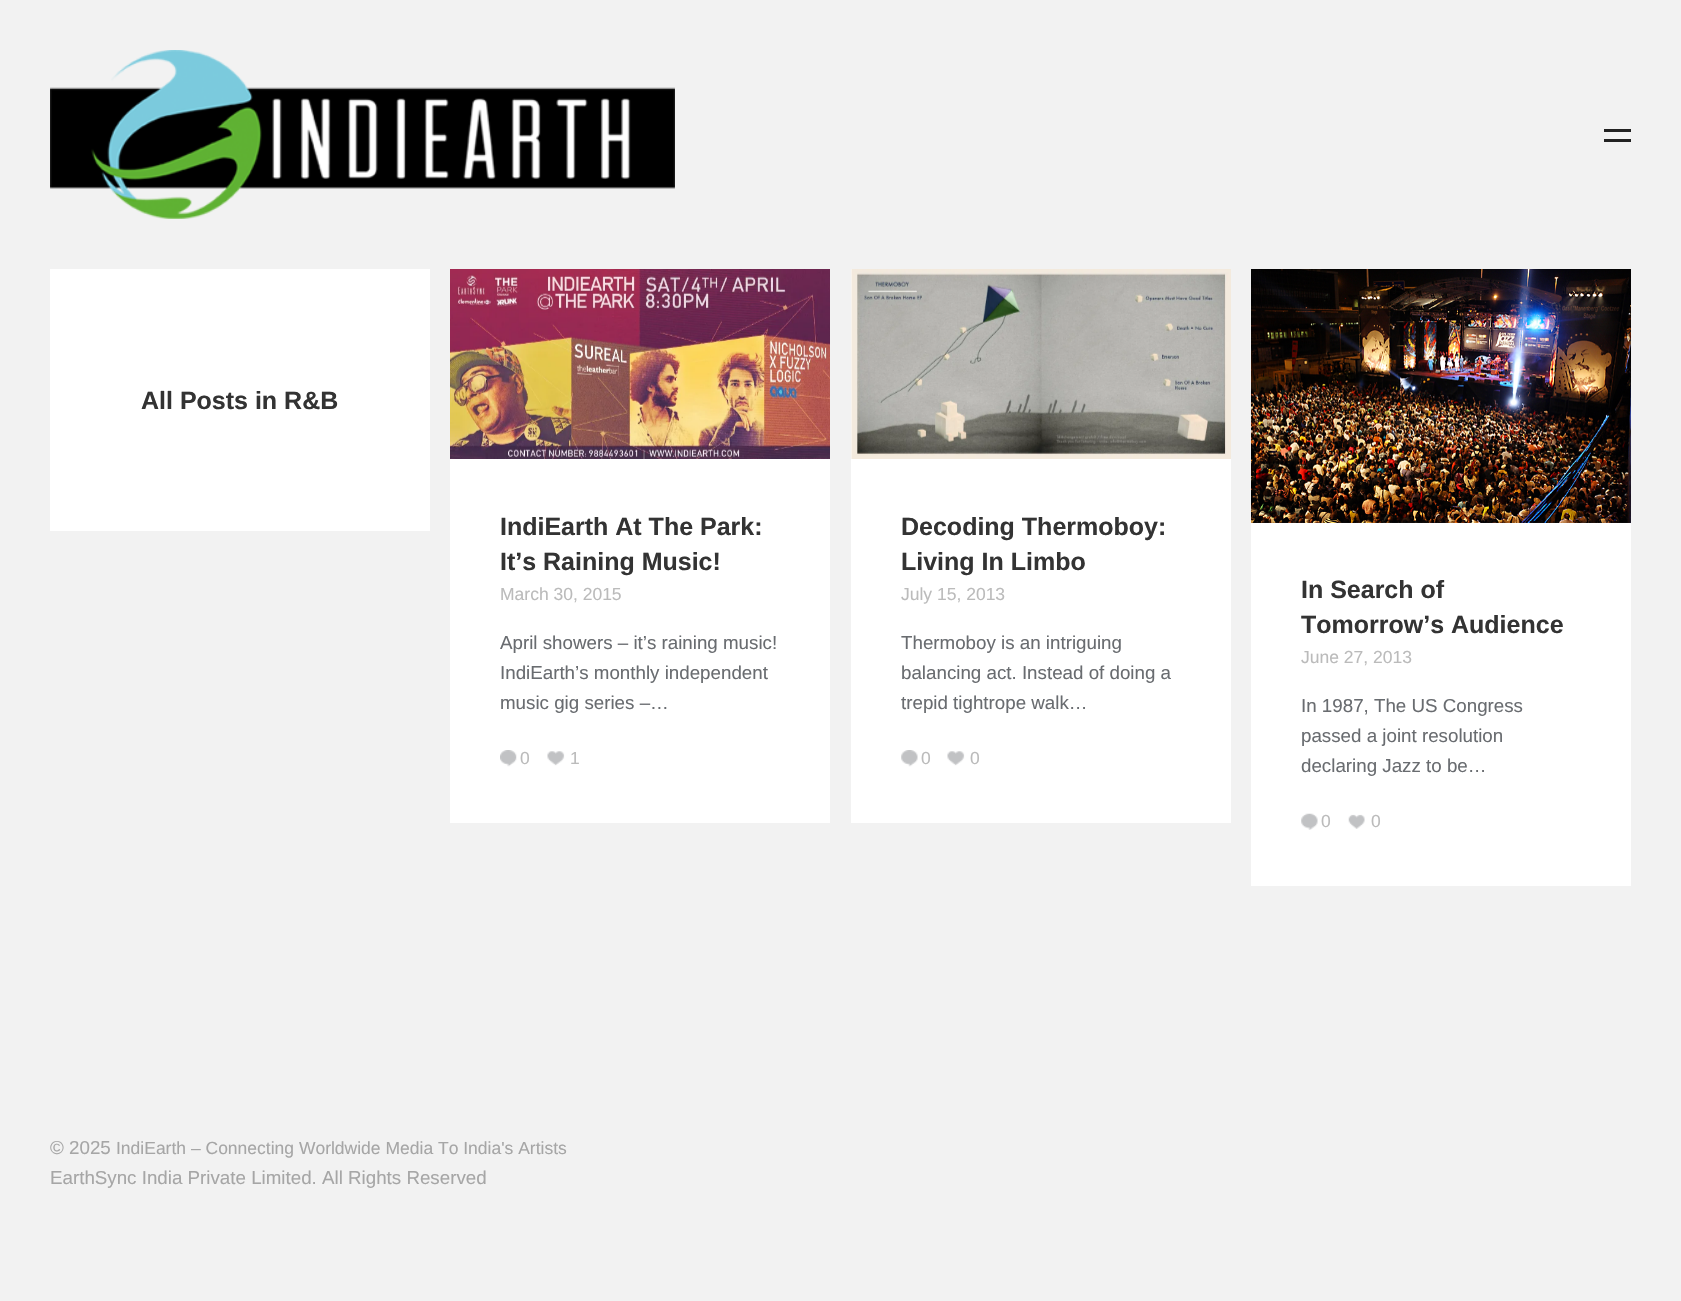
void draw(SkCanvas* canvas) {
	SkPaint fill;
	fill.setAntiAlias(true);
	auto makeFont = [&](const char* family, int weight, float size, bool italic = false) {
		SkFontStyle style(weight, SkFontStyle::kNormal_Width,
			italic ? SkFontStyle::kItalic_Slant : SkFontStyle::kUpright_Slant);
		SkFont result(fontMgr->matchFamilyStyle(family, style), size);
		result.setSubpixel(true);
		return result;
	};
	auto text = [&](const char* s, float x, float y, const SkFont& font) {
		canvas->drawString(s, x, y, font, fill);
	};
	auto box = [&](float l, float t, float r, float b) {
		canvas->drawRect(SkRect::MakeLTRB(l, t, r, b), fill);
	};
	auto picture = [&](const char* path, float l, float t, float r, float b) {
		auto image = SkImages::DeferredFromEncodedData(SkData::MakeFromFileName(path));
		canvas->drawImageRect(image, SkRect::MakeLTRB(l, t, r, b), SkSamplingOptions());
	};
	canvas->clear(0xFFF2F2F2);
	picture("image0.png", 50, 50, 675, 219);
	fill.setColor(0xFF222222);
	box(1604, 129, 1631, 132);
	box(1604, 139, 1631, 142);
	fill.setColor(0xFFFFFFFF);
	box(50, 269, 430, 531);
	box(450, 459, 830, 823);
	picture("image1.png", 450, 269, 830, 459);
	picture("image2.png", 500, 750, 517, 767);
	picture("image3.png", 547, 751, 565, 766);
	box(851, 269, 1231, 823);
	picture("image4.png", 851, 269, 1231, 459);
	picture("image5.png", 901, 750, 918, 767);
	picture("image6.png", 947, 751, 965, 766);
	box(1251, 522, 1631, 886);
	picture("image7.png", 1251, 269, 1631, 523);
	picture("image8.png", 1301, 813, 1318, 830);
	picture("image9.png", 1348, 814, 1365, 829);
	auto font1 = makeFont("Arimo", 700, 25);
	fill.setColor(0xFF333333);
	text("All Posts in R&B", 141, 409, font1);
	text("IndiEarth At The Park:", 500, 535, font1);
	text("It’s Raining Music!", 500, 570, font1);
	auto font2 = makeFont("Arimo", 400, 17.5f);
	fill.setColor(0xFFBBBBBB);
	text("March 30, 2015", 500, 600, font2);
	auto font3 = makeFont("Arimo", 400, 18.75f);
	fill.setColor(0xFF696C70);
	text("April showers – it’s raining music!", 500, 649, font3);
	text("IndiEarth’s monthly independent", 500, 679, font3);
	text("music gig series –…", 500, 709, font3);
	fill.setColor(0xFFBBBBBB);
	text("0", 520, 764, font2);
	text("1", 570, 764, font2);
	fill.setColor(0xFF333333);
	text("Decoding Thermoboy:", 901, 535, font1);
	text("Living In Limbo", 901, 570, font1);
	fill.setColor(0xFFBBBBBB);
	text("July 15, 2013", 901, 600, font2);
	fill.setColor(0xFF696C70);
	text("Thermoboy is an intriguing", 901, 649, font3);
	text("balancing act. Instead of doing a", 901, 679, font3);
	text("trepid tightrope walk…", 901, 709, font3);
	fill.setColor(0xFFBBBBBB);
	text("0", 921, 764, font2);
	text("0", 970, 764, font2);
	fill.setColor(0xFF333333);
	text("In Search of", 1301, 598, font1);
	text("Tomorrow’s Audience", 1301, 633, font1);
	fill.setColor(0xFFBBBBBB);
	text("June 27, 2013", 1301, 663, font2);
	fill.setColor(0xFF696C70);
	text("In 1987, The US Congress", 1301, 712, font3);
	text("passed a joint resolution", 1301, 742, font3);
	text("declaring Jazz to be…", 1301, 772, font3);
	fill.setColor(0xFFBBBBBB);
	text("0", 1321, 827, font2);
	text("0", 1371, 827, font2);
	fill.setColor(0xFFA6A6A6);
	text("© 2025", 50, 1154, font3);
	text("IndiEarth – Connecting Worldwide Media To India's Artists", 116, 1154, font2);
	text("EarthSync India Private Limited. All Rights Reserved", 50, 1184, font3);
}
